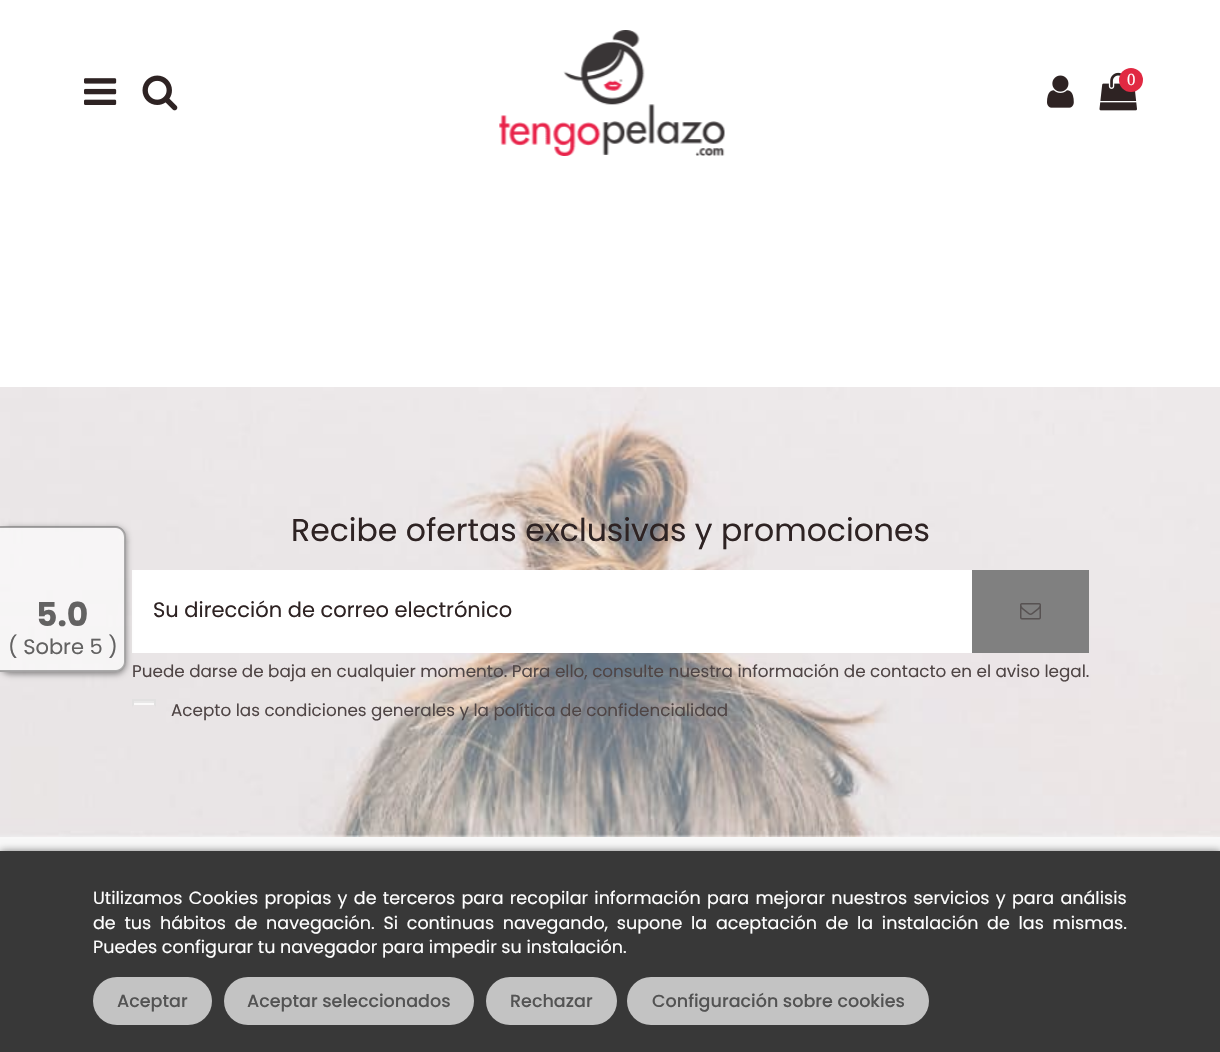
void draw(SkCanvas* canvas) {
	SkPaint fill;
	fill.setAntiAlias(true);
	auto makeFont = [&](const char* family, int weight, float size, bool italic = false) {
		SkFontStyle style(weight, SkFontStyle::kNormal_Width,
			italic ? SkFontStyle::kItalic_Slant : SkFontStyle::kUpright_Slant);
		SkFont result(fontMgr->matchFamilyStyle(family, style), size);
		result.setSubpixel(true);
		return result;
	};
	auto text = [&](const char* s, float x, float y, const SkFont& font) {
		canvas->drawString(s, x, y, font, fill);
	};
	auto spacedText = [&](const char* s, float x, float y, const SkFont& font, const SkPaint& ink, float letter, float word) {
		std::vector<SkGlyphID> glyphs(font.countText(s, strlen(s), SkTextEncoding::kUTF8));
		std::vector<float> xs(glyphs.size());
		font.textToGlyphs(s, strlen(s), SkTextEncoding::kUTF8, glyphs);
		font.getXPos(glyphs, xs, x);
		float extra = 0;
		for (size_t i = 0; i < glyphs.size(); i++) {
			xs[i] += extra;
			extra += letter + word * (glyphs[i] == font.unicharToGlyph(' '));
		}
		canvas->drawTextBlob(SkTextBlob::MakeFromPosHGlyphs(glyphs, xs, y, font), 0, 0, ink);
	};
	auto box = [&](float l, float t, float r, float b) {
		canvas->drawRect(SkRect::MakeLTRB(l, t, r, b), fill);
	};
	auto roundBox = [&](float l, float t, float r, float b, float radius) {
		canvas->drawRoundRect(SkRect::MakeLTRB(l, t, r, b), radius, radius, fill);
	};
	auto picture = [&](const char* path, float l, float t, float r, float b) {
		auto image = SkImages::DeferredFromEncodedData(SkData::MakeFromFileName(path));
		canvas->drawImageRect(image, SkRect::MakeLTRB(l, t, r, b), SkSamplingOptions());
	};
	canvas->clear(0xFFFFFFFF);
	picture("image5.png", 0, 387, 1220, 837);
	fill.setColor(0xFFFFFFFF);
	box(132, 570, 972, 653);
	canvas->save();
	canvas->clipPath(SkPathBuilder(SkPathFillType::kEvenOdd).moveTo(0, 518).lineTo(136, 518).lineTo(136, 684).lineTo(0, 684).close().moveTo(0, 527).lineTo(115, 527).cubicTo(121, 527, 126, 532, 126, 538).lineTo(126, 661).cubicTo(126, 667, 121, 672, 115, 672).lineTo(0, 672).close().detach(), true);
	fill.setColor(0x73000000);
	fill.setMaskFilter(SkMaskFilter::MakeBlur(kNormal_SkBlurStyle, 3));
	canvas->drawRoundRect(SkRect::MakeLTRB(0, 528, 126, 674), 11, 11, fill);
	fill.setMaskFilter(nullptr);
	canvas->restore();
	fill.setColor(0x99FFFFFF);
	canvas->drawPath(SkPathBuilder().moveTo(0, 528).lineTo(116, 528).cubicTo(121, 528, 125, 532, 125, 537).lineTo(125, 662).cubicTo(125, 667, 121, 671, 116, 671).lineTo(0, 671).close().detach(), fill);
	fill.setColor(0x99777777);
	canvas->drawPath(SkPathBuilder(SkPathFillType::kEvenOdd).moveTo(0, 526).lineTo(116, 526).cubicTo(121, 526, 126, 531, 126, 537).lineTo(126, 662).cubicTo(126, 667, 121, 672, 116, 672).lineTo(0, 672).close().moveTo(0, 528).lineTo(116, 528).cubicTo(120, 528, 124, 532, 124, 537).lineTo(124, 662).cubicTo(124, 666, 120, 670, 116, 670).lineTo(0, 670).close().detach(), fill);
	picture("image0.png", 84, 78, 117, 105);
	picture("image1.png", 142, 75, 178, 111);
	picture("image2.png", 499, 30, 725, 156);
	picture("image3.png", 1047, 75, 1074, 108);
	picture("image4.png", 1099, 72, 1137, 111);
	fill.setColor(0xFFE12942);
	canvas->drawCircle(1131, 80, 12, fill);
	fill.setColor(0xFFF8F8F8);
	box(0, 837, 1220, 851);
	fill.setColor(0xFF808080);
	box(972, 570, 1089, 653);
	picture("image6.png", 1020, 603, 1041, 620);
	fill.setColor(0xFFFBFAFA);
	box(134, 703, 154, 706);
	fill.setColor(0xFFE9E8E8);
	box(134, 701, 155, 703);
	fill.setStyle(SkPaint::kStroke_Style);
	fill.setStrokeWidth(2);
	fill.setColor(0xFFE2E1E1);
	canvas->drawRect(SkRect::MakeLTRB(133, 700, 155, 722), fill);
	fill.setStyle(SkPaint::kFill_Style);
	fill.setColor(0xFFE9E5E6);
	roundBox(132, 705, 156, 729, 3);
	fill.setColor(0x80000000);
	fill.setMaskFilter(SkMaskFilter::MakeBlur(kNormal_SkBlurStyle, 4));
	canvas->drawRect(SkRect::MakeLTRB(0, 851, 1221, 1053), fill);
	fill.setMaskFilter(nullptr);
	fill.setColor(0xFF383838);
	box(0, 851, 1220, 1052);
	fill.setColor(0xFFC3C3C3);
	roundBox(93, 977, 212, 1025, 24);
	roundBox(224, 977, 474, 1025, 24);
	roundBox(486, 977, 617, 1025, 24);
	roundBox(627, 977, 929, 1025, 24);
	auto font1 = makeFont("Poppins", 700, 33);
	fill.setColor(0xFF636262);
	text("5.0", 36, 626, font1);
	auto font2 = makeFont("Poppins", 400, 21);
	text("( Sobre 5 )", 8, 654, font2);
	auto font3 = makeFont("Liberation Serif", 400, 16.8f);
	fill.setColor(0xFFFFFFFF);
	text("0", 1127, 85, font3);
	auto font4 = makeFont("Poppins", 400, 31.5f);
	fill.setColor(0xFF2E2323);
	text("Recibe ofertas exclusivas y promociones", 291, 541, font4);
	text("Su dirección de correo electrónico", 153, 617, font2);
	auto font5 = makeFont("Poppins", 400, 16.8f);
	fill.setColor(0xFF4F4545);
	text("Puede darse de baja en cualquier momento. Para ello, consulte nuestra información de contacto en el aviso legal.", 132, 677, font5);
	text("Acepto las condiciones generales y la política de confidencialidad", 171, 716, font5);
	auto font6 = makeFont("Poppins", 400, 17.55f);
	fill.setColor(0xFFFFFFFF);
	spacedText("Utilizamos Cookies propias y de terceros para recopilar información para mejorar nuestros servicios y para análisis", 93, 904, font6, fill, 0, 1.6f);
	spacedText("de tus hábitos de navegación. Si continuas navegando, supone la aceptación de la instalación de las mismas.", 93, 929, font6, fill, 0, 4);
	text("Puedes configurar tu navegador para impedir su instalación.", 93, 953, font6);
	auto font7 = makeFont("Poppins", 500, 17.55f);
	fill.setColor(0xFF535353);
	text("Aceptar", 117, 1007, font7);
	text("Aceptar seleccionados", 247, 1007, font7);
	text("Rechazar", 510, 1007, font7);
	text("Configuración sobre cookies", 652, 1007, font7);
}
